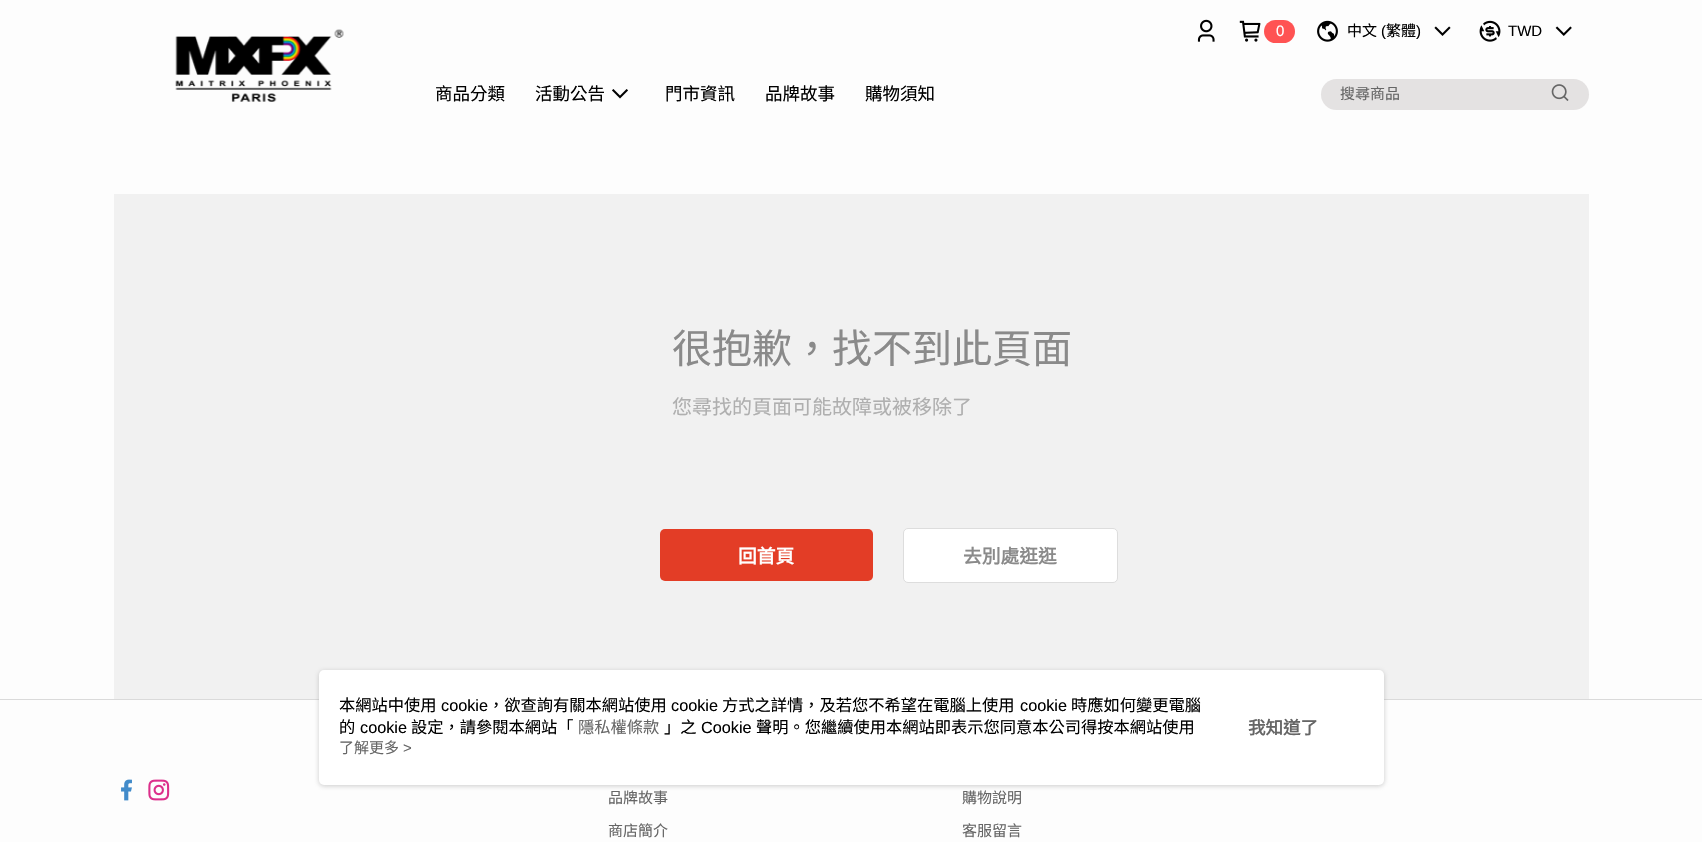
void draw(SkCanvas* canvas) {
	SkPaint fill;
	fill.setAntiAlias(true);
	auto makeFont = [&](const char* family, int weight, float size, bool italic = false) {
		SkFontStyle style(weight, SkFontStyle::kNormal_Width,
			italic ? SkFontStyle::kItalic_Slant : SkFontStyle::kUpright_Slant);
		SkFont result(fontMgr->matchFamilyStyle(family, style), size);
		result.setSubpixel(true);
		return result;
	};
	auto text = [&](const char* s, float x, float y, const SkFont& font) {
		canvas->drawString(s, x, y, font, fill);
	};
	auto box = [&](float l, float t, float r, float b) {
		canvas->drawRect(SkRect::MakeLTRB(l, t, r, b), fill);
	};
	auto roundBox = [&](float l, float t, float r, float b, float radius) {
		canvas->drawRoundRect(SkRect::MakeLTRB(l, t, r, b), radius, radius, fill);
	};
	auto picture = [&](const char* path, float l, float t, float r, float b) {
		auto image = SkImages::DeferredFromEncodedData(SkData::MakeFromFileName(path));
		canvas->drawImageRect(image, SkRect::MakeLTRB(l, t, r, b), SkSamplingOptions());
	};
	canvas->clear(0xFFFDFDFD);
	picture("image0.png", 175, 29, 344, 102);
	picture("image1.png", 1197, 19, 1215, 42);
	picture("image2.png", 1239, 20, 1261, 42);
	fill.setColor(0xFFFF5353);
	roundBox(1264, 20, 1295, 43, 11.5f);
	picture("image3.png", 1317, 20, 1338, 42);
	picture("image4.png", 1434, 26, 1451, 36);
	picture("image5.png", 1479, 20, 1501, 42);
	picture("image6.png", 1555, 26, 1572, 36);
	picture("image7.png", 612, 89, 628, 99);
	fill.setColor(0xFFE4E2E2);
	roundBox(1321, 79, 1589, 110, 15.5f);
	picture("image8.png", 1551, 84, 1569, 101);
	fill.setColor(0xFFF1F1F1);
	box(114, 194, 1589, 699);
	fill.setColor(0xFFE33D26);
	roundBox(660, 529, 873, 581, 5);
	fill.setColor(0xFFFFFFFF);
	canvas->drawRoundRect(SkRect::MakeLTRB(903.5f, 528.5f, 1117.5f, 582.5f), 4.5f, 4.5f, fill);
	fill.setStyle(SkPaint::kStroke_Style);
	fill.setStrokeWidth(1);
	fill.setColor(0xFFDDDDDD);
	canvas->drawRoundRect(SkRect::MakeLTRB(903.5f, 528.5f, 1117.5f, 582.5f), 4.5f, 4.5f, fill);
	fill.setStyle(SkPaint::kFill_Style);
	fill.setColor(0xFFDADADA);
	box(0, 699, 1702, 700);
	picture("image9.png", 121, 779, 132, 801);
	picture("image10.png", 148, 779, 170, 801);
	fill.setColor(0x80979797);
	fill.setMaskFilter(SkMaskFilter::MakeBlur(kNormal_SkBlurStyle, 2.5f));
	canvas->drawRoundRect(SkRect::MakeLTRB(319, 671, 1384, 786), 5, 5, fill);
	fill.setMaskFilter(nullptr);
	fill.setColor(0xFFFFFFFF);
	roundBox(319, 670, 1384, 785, 5);
	auto font1 = makeFont("Liberation Sans", 400, 15);
	text("0", 1276, 36, font1);
	auto font2 = makeFont("Noto Sans CJK TC", 400, 15);
	fill.setColor(0xFF000000);
	text("中文", 1347, 36, font2);
	text("(", 1381, 36, font1);
	text("繁體", 1386, 36, font2);
	text(")", 1416, 36, font1);
	text("TWD", 1508, 36, font1);
	auto font3 = makeFont("Noto Sans CJK TC", 400, 17.5f);
	text("商品分類", 435, 100, font3);
	text("活動公告", 535, 100, font3);
	text("門市資訊", 665, 100, font3);
	text("品牌故事", 765, 100, font3);
	text("購物須知", 865, 100, font3);
	fill.setColor(0xFF666666);
	text("搜尋商品", 1340, 99, font2);
	auto font4 = makeFont("Noto Sans CJK TC", 400, 40);
	fill.setColor(0xFF8A8A8A);
	text("很抱歉，找不到此頁面", 672, 363, font4);
	auto font5 = makeFont("Noto Sans CJK TC", 400, 20);
	fill.setColor(0xFFAFAFAF);
	text("您尋找的頁面可能故障或被移除了", 672, 414, font5);
	auto font6 = makeFont("Noto Sans CJK TC", 700, 18.75f);
	fill.setColor(0xFFFFFFFF);
	text("回首頁", 738, 563, font6);
	fill.setColor(0xFF8A8A8A);
	text("去別處逛逛", 963, 563, font6);
	fill.setColor(0xFF666666);
	text("品牌故事", 608, 803, font2);
	text("商店簡介", 608, 836, font2);
	text("購物說明", 962, 803, font2);
	text("客服留言", 962, 836, font2);
	auto font7 = makeFont("Noto Sans CJK TC", 400, 16.25f);
	fill.setColor(0xFF000000);
	text("本網站中使用", 339, 711, font7);
	auto font8 = makeFont("Liberation Sans", 400, 16.25f);
	text("cookie", 441, 711, font8);
	text("，欲查詢有關本網站使用", 488, 711, font7);
	text("cookie", 671, 711, font8);
	text("方式之詳情，及若您不希望在電腦上使用", 722, 711, font7);
	text("cookie", 1020, 711, font8);
	text("時應如何變更電腦", 1071, 711, font7);
	text("的", 339, 733, font7);
	text("cookie", 360, 733, font8);
	text("設定，請參閱本網站「", 411, 733, font7);
	fill.setColor(0xFF666666);
	text("隱私權條款", 578, 733, font7);
	fill.setColor(0xFF000000);
	text("」之", 664, 733, font7);
	text("Cookie", 701, 733, font8);
	text("聲明。您繼續使用本網站即表示您同意本公司得按本網站使用", 756, 733, font7);
	fill.setColor(0xFF666666);
	text("了解更多", 339, 753, font2);
	text(">", 403, 753, font1);
	auto font9 = makeFont("Noto Sans CJK TC", 700, 17.5f);
	text("我知道了", 1248, 734, font9);
}
